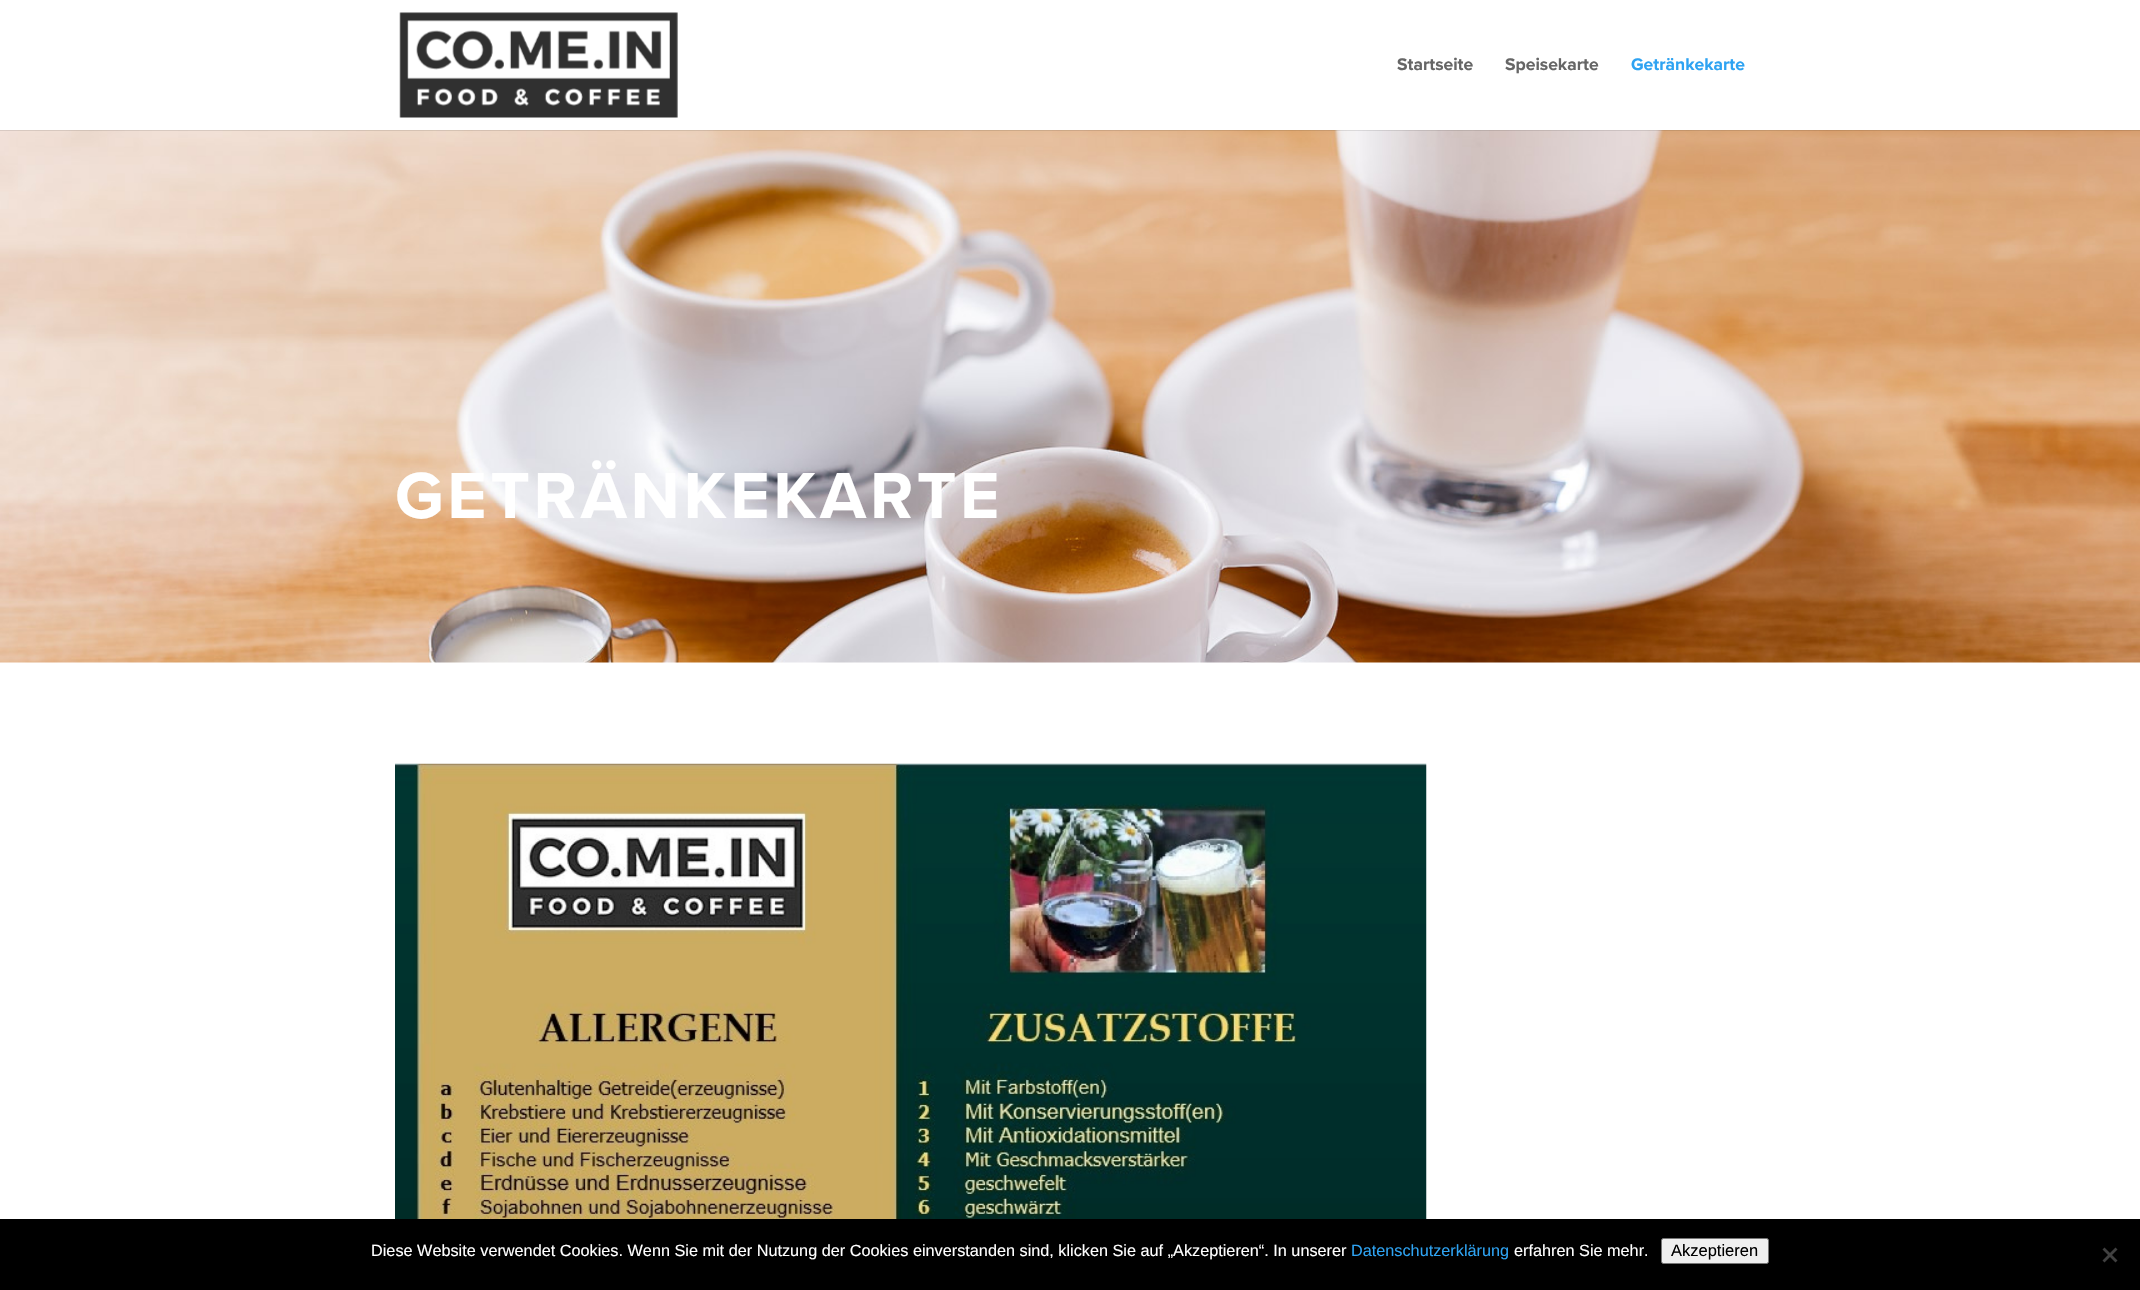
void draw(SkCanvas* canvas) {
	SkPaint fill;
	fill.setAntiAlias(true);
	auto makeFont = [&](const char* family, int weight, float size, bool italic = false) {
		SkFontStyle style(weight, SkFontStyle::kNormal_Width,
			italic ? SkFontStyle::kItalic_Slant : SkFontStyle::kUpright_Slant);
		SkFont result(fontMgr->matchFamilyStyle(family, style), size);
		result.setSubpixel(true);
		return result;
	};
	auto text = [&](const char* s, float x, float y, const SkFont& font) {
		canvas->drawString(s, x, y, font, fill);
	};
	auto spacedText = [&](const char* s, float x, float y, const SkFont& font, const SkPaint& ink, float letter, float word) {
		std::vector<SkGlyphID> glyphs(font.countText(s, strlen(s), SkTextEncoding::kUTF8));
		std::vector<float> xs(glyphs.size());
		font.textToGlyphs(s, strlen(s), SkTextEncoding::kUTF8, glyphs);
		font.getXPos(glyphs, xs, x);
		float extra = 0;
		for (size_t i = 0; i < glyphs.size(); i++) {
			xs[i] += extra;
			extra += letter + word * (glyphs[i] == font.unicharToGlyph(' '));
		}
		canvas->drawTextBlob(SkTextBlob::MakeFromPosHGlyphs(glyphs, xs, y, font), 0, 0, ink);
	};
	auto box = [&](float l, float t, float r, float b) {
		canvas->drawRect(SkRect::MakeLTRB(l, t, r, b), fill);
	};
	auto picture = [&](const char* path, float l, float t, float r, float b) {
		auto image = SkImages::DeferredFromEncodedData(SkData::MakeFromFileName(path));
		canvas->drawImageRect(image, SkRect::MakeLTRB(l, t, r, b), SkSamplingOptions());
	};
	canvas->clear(0xFFFFFFFF);
	picture("image1.png", 0, 130, 2140, 663);
	fill.setColor(0x1A000000);
	box(0, 130, 2140, 131);
	picture("image0.png", 399, 12, 678, 118);
	picture("image2.png", 395, 763, 1427, 1219);
	fill.setColor(0xFF000000);
	box(0, 1219, 2140, 1290);
	fill.setColor(0xFFEFEFEF);
	canvas->drawRoundRect(SkRect::MakeLTRB(1661.5f, 1238.5f, 1768.5f, 1263.5f), 2, 2, fill);
	fill.setStyle(SkPaint::kStroke_Style);
	fill.setStrokeWidth(1);
	fill.setColor(0xFF767676);
	canvas->drawRoundRect(SkRect::MakeLTRB(1661.5f, 1238.5f, 1768.5f, 1263.5f), 2, 2, fill);
	fill.setStyle(SkPaint::kFill_Style);
	fill.setColor(0xFF404040);
	canvas->drawPath(SkPathBuilder().moveTo(2115.5f, 1247.5f).lineTo(2117.5f, 1249.5f).lineTo(2104.5f, 1262.5f).lineTo(2102.5f, 1260.5f).close().detach(), fill);
	canvas->drawPath(SkPathBuilder().moveTo(2102.5f, 1249.5f).lineTo(2104.5f, 1247.5f).lineTo(2117.5f, 1260.5f).lineTo(2115.5f, 1262.5f).close().detach(), fill);
	auto font1 = makeFont("Proxima Nova", 700, 17.5f);
	fill.setColor(0xFF666666);
	text("Startseite", 1397, 70, font1);
	text("Speisekarte", 1505, 70, font1);
	fill.setColor(0xFF2EA3F2);
	text("Getränkekarte", 1631, 70, font1);
	auto font2 = makeFont("Proxima Nova", 700, 67.5f);
	fill.setColor(0xFFFFFFFF);
	spacedText("GETRÄNKEKARTE", 395, 518, font2, fill, 3.75f, 0);
	auto font3 = makeFont("Liberation Sans", 400, 16.25f);
	text("Diese Website verwendet Cookies. Wenn Sie mit der Nutzung der Cookies einverstanden sind, klicken Sie auf „Akzeptieren“. In unserer", 371, 1256, font3);
	fill.setColor(0xFF2EA3F2);
	text("Datenschutzerklärung", 1351, 1256, font3);
	fill.setColor(0xFFFFFFFF);
	text("erfahren Sie mehr.", 1514, 1256, font3);
	auto font4 = makeFont("Liberation Sans", 400, 16.5f);
	fill.setColor(0xFF000000);
	text("Akzeptieren", 1671, 1256, font4);
}
